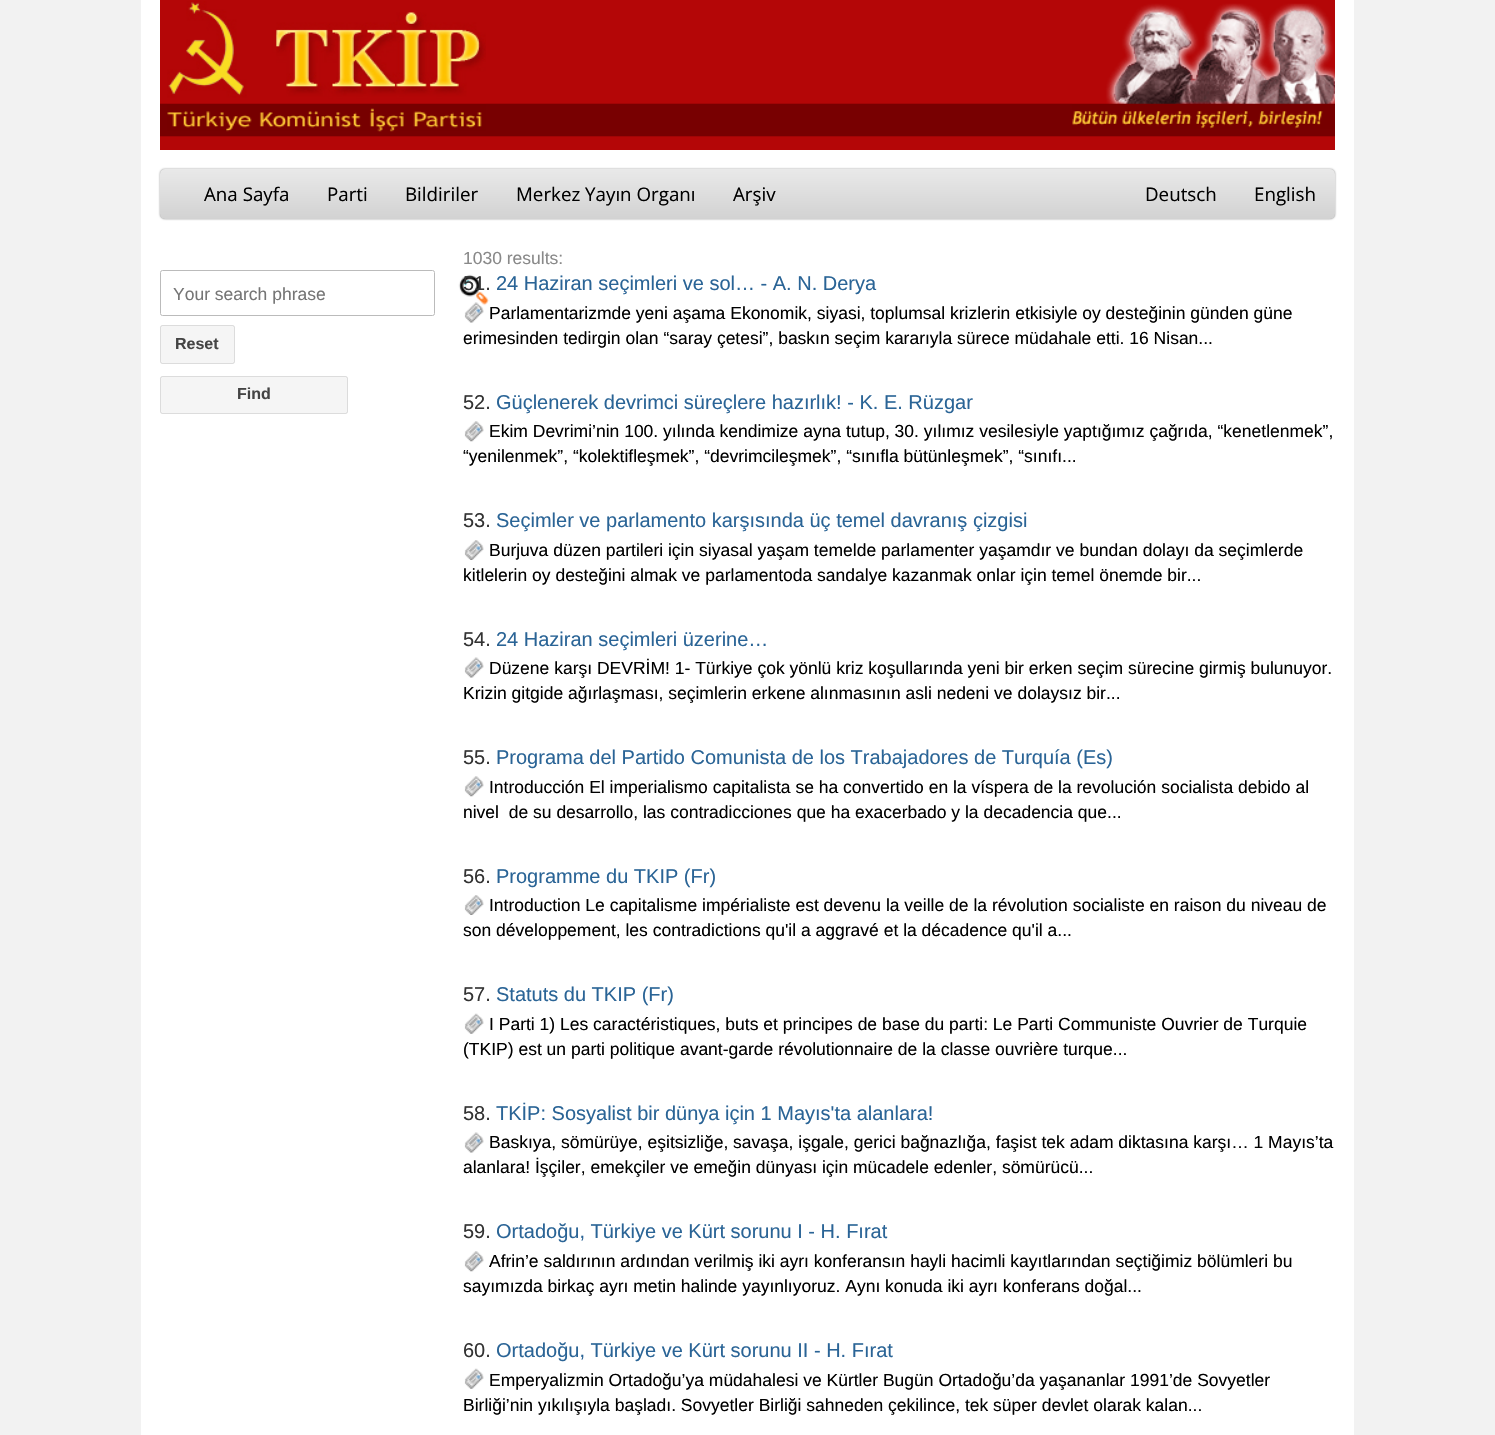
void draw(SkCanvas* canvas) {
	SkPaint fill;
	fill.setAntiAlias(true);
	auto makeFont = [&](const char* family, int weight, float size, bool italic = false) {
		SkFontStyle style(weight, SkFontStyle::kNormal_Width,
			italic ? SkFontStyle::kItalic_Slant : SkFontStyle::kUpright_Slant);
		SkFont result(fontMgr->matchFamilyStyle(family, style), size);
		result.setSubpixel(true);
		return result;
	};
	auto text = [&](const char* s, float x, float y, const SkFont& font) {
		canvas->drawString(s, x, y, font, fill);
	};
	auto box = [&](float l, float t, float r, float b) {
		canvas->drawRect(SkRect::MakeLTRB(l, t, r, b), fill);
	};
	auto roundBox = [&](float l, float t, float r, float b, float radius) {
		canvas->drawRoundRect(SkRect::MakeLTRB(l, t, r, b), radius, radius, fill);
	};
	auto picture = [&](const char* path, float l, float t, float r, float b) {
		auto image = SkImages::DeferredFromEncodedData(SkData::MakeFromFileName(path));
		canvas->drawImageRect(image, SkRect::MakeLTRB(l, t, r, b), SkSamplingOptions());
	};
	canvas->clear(0xFFF2F2F2);
	fill.setColor(0xFFFFFFFF);
	box(141, 0, 1354, 1435);
	picture("image0.png", 160, 0, 1335, 150);
	picture("image1.png", 167, 1, 486, 132);
	picture("image2.png", 1072, 3, 1335, 129);
	fill.setColor(0x78000000);
	fill.setMaskFilter(SkMaskFilter::MakeBlur(kNormal_SkBlurStyle, 1));
	canvas->drawRoundRect(SkRect::MakeLTRB(160, 169, 1335, 219), 5, 5, fill);
	fill.setMaskFilter(nullptr);
	{
		const SkColor colors[] = {0xFFE9E9E9, 0xFFD2D2D2};
		const float stops[] = {0, 1};
		const SkPoint ends[] = {{748, 169}, {748, 219}};
		fill.setShader(SkGradientShader::MakeLinear(ends, colors, stops, 2, SkTileMode::kClamp));
		fill.setAlpha(255);
	}
	roundBox(160, 169, 1335, 219, 5);
	fill.setStyle(SkPaint::kStroke_Style);
	fill.setStrokeWidth(1);
	fill.setShader(nullptr);
	fill.setColor(0xFFBBBBBB);
	canvas->drawRoundRect(SkRect::MakeLTRB(160.5f, 270.5f, 434.5f, 315.5f), 2, 2, fill);
	picture("image3.png", 458, 274, 490, 306);
	fill.setStyle(SkPaint::kFill_Style);
	fill.setColor(0xFFF5F5F5);
	roundBox(160, 325, 235, 364, 2.5f);
	fill.setStyle(SkPaint::kStroke_Style);
	fill.setColor(0x1A000000);
	canvas->drawRoundRect(SkRect::MakeLTRB(160.5f, 325.5f, 234.5f, 363.5f), 2, 2, fill);
	fill.setStyle(SkPaint::kFill_Style);
	fill.setColor(0xFFF5F5F5);
	roundBox(160, 376, 348, 414, 2.5f);
	fill.setStyle(SkPaint::kStroke_Style);
	fill.setColor(0x1A000000);
	canvas->drawRoundRect(SkRect::MakeLTRB(160.5f, 376.5f, 347.5f, 413.5f), 2, 2, fill);
	picture("image4.png", 464, 302, 484, 323);
	picture("image5.png", 464, 421, 484, 442);
	picture("image6.png", 464, 540, 484, 560);
	picture("image7.png", 464, 657, 484, 678);
	picture("image8.png", 464, 776, 484, 797);
	picture("image6.png", 464, 895, 484, 915);
	picture("image9.png", 464, 1013, 484, 1034);
	picture("image7.png", 464, 1132, 484, 1153);
	picture("image5.png", 464, 1251, 484, 1272);
	picture("image9.png", 464, 1368, 484, 1389);
	auto font1 = makeFont("Open Sans", 400, 18.75f);
	fill.setStyle(SkPaint::kFill_Style);
	fill.setColor(0xFF000000);
	text("Ana Sayfa", 204, 201, font1);
	text("Parti", 327, 201, font1);
	text("Bildiriler", 405, 201, font1);
	text("Merkez Yayın Organı", 516, 201, font1);
	text("Arşiv", 733, 201, font1);
	text("Deutsch", 1145, 201, font1);
	text("English", 1254, 201, font1);
	auto font2 = makeFont("Liberation Sans", 400, 17.5f);
	fill.setColor(0xFF757575);
	text("Your search phrase", 173, 300, font2);
	auto font3 = makeFont("Liberation Sans", 700, 16);
	fill.setColor(0xFF444444);
	text("Reset", 175, 349, font3);
	text("Find", 237, 399, font3);
	fill.setColor(0xFF898989);
	text("1030 results:", 463, 264, font2);
	auto font4 = makeFont("Liberation Sans", 400, 20);
	fill.setColor(0xFF333333);
	text("51.", 463, 290, font4);
	fill.setColor(0xFF2A6496);
	text("24 Haziran seçimleri ve sol… - A. N. Derya", 496, 290, font4);
	fill.setColor(0xFF000000);
	text("Parlamentarizmde yeni aşama Ekonomik, siyasi, toplumsal krizlerin etkisiyle oy desteğinin günden güne", 489, 319, font2);
	text("erimesinden tedirgin olan “saray çetesi”, baskın seçim kararıyla sürece müdahale etti. 16 Nisan...", 463, 344, font2);
	fill.setColor(0xFF333333);
	text("52.", 463, 409, font4);
	fill.setColor(0xFF2A6496);
	text("Güçlenerek devrimci süreçlere hazırlık! - K. E. Rüzgar", 496, 409, font4);
	fill.setColor(0xFF000000);
	text("Ekim Devrimi’nin 100. yılında kendimize ayna tutup, 30. yılımız vesilesiyle yaptığımız çağrıda, “kenetlenmek”,", 489, 437, font2);
	text("“yenilenmek”, “kolektifleşmek”, “devrimcileşmek”, “sınıfla bütünleşmek”, “sınıfı...", 463, 462, font2);
	fill.setColor(0xFF333333);
	text("53.", 463, 527, font4);
	fill.setColor(0xFF2A6496);
	text("Seçimler ve parlamento karşısında üç temel davranış çizgisi", 496, 527, font4);
	fill.setColor(0xFF000000);
	text("Burjuva düzen partileri için siyasal yaşam temelde parlamenter yaşamdır ve bundan dolayı da seçimlerde", 489, 556, font2);
	text("kitlelerin oy desteğini almak ve parlamentoda sandalye kazanmak onlar için temel önemde bir...", 463, 581, font2);
	fill.setColor(0xFF333333);
	text("54.", 463, 646, font4);
	fill.setColor(0xFF2A6496);
	text("24 Haziran seçimleri üzerine…", 496, 646, font4);
	fill.setColor(0xFF000000);
	text("Düzene karşı DEVRİM! 1- Türkiye çok yönlü kriz koşullarında yeni bir erken seçim sürecine girmiş bulunuyor.", 489, 674, font2);
	text("Krizin gitgide ağırlaşması, seçimlerin erkene alınmasının asli nedeni ve dolaysız bir...", 463, 699, font2);
	fill.setColor(0xFF333333);
	text("55.", 463, 764, font4);
	fill.setColor(0xFF2A6496);
	text("Programa del Partido Comunista de los Trabajadores de Turquía (Es)", 496, 764, font4);
	fill.setColor(0xFF000000);
	text("Introducción El imperialismo capitalista se ha convertido en la víspera de la revolución socialista debido al", 489, 793, font2);
	text("nivel  de su desarrollo, las contradicciones que ha exacerbado y la decadencia que...", 463, 818, font2);
	fill.setColor(0xFF333333);
	text("56.", 463, 883, font4);
	fill.setColor(0xFF2A6496);
	text("Programme du TKIP (Fr)", 496, 883, font4);
	fill.setColor(0xFF000000);
	text("Introduction Le capitalisme impérialiste est devenu la veille de la révolution socialiste en raison du niveau de", 489, 911, font2);
	text("son développement, les contradictions qu'il a aggravé et la décadence qu'il a...", 463, 936, font2);
	fill.setColor(0xFF333333);
	text("57.", 463, 1001, font4);
	fill.setColor(0xFF2A6496);
	text("Statuts du TKIP (Fr)", 496, 1001, font4);
	fill.setColor(0xFF000000);
	text("I Parti 1) Les caractéristiques, buts et principes de base du parti: Le Parti Communiste Ouvrier de Turquie", 489, 1030, font2);
	text("(TKIP) est un parti politique avant-garde révolutionnaire de la classe ouvrière turque...", 463, 1055, font2);
	fill.setColor(0xFF333333);
	text("58.", 463, 1120, font4);
	fill.setColor(0xFF2A6496);
	text("TKİP: Sosyalist bir dünya için 1 Mayıs'ta alanlara!", 496, 1120, font4);
	fill.setColor(0xFF000000);
	text("Baskıya, sömürüye, eşitsizliğe, savaşa, işgale, gerici bağnazlığa, faşist tek adam diktasına karşı… 1 Mayıs’ta", 489, 1148, font2);
	text("alanlara! İşçiler, emekçiler ve emeğin dünyası için mücadele edenler, sömürücü...", 463, 1173, font2);
	fill.setColor(0xFF333333);
	text("59.", 463, 1238, font4);
	fill.setColor(0xFF2A6496);
	text("Ortadoğu, Türkiye ve Kürt sorunu I - H. Fırat", 496, 1238, font4);
	fill.setColor(0xFF000000);
	text("Afrin’e saldırının ardından verilmiş iki ayrı konferansın hayli hacimli kayıtlarından seçtiğimiz bölümleri bu", 489, 1267, font2);
	text("sayımızda birkaç ayrı metin halinde yayınlıyoruz. Aynı konuda iki ayrı konferans doğal...", 463, 1292, font2);
	fill.setColor(0xFF333333);
	text("60.", 463, 1357, font4);
	fill.setColor(0xFF2A6496);
	text("Ortadoğu, Türkiye ve Kürt sorunu II - H. Fırat", 496, 1357, font4);
	fill.setColor(0xFF000000);
	text("Emperyalizmin Ortadoğu’ya müdahalesi ve Kürtler Bugün Ortadoğu’da yaşananlar 1991’de Sovyetler", 489, 1386, font2);
	text("Birliği’nin yıkılışıyla başladı. Sovyetler Birliği sahneden çekilince, tek süper devlet olarak kalan...", 463, 1411, font2);
}
